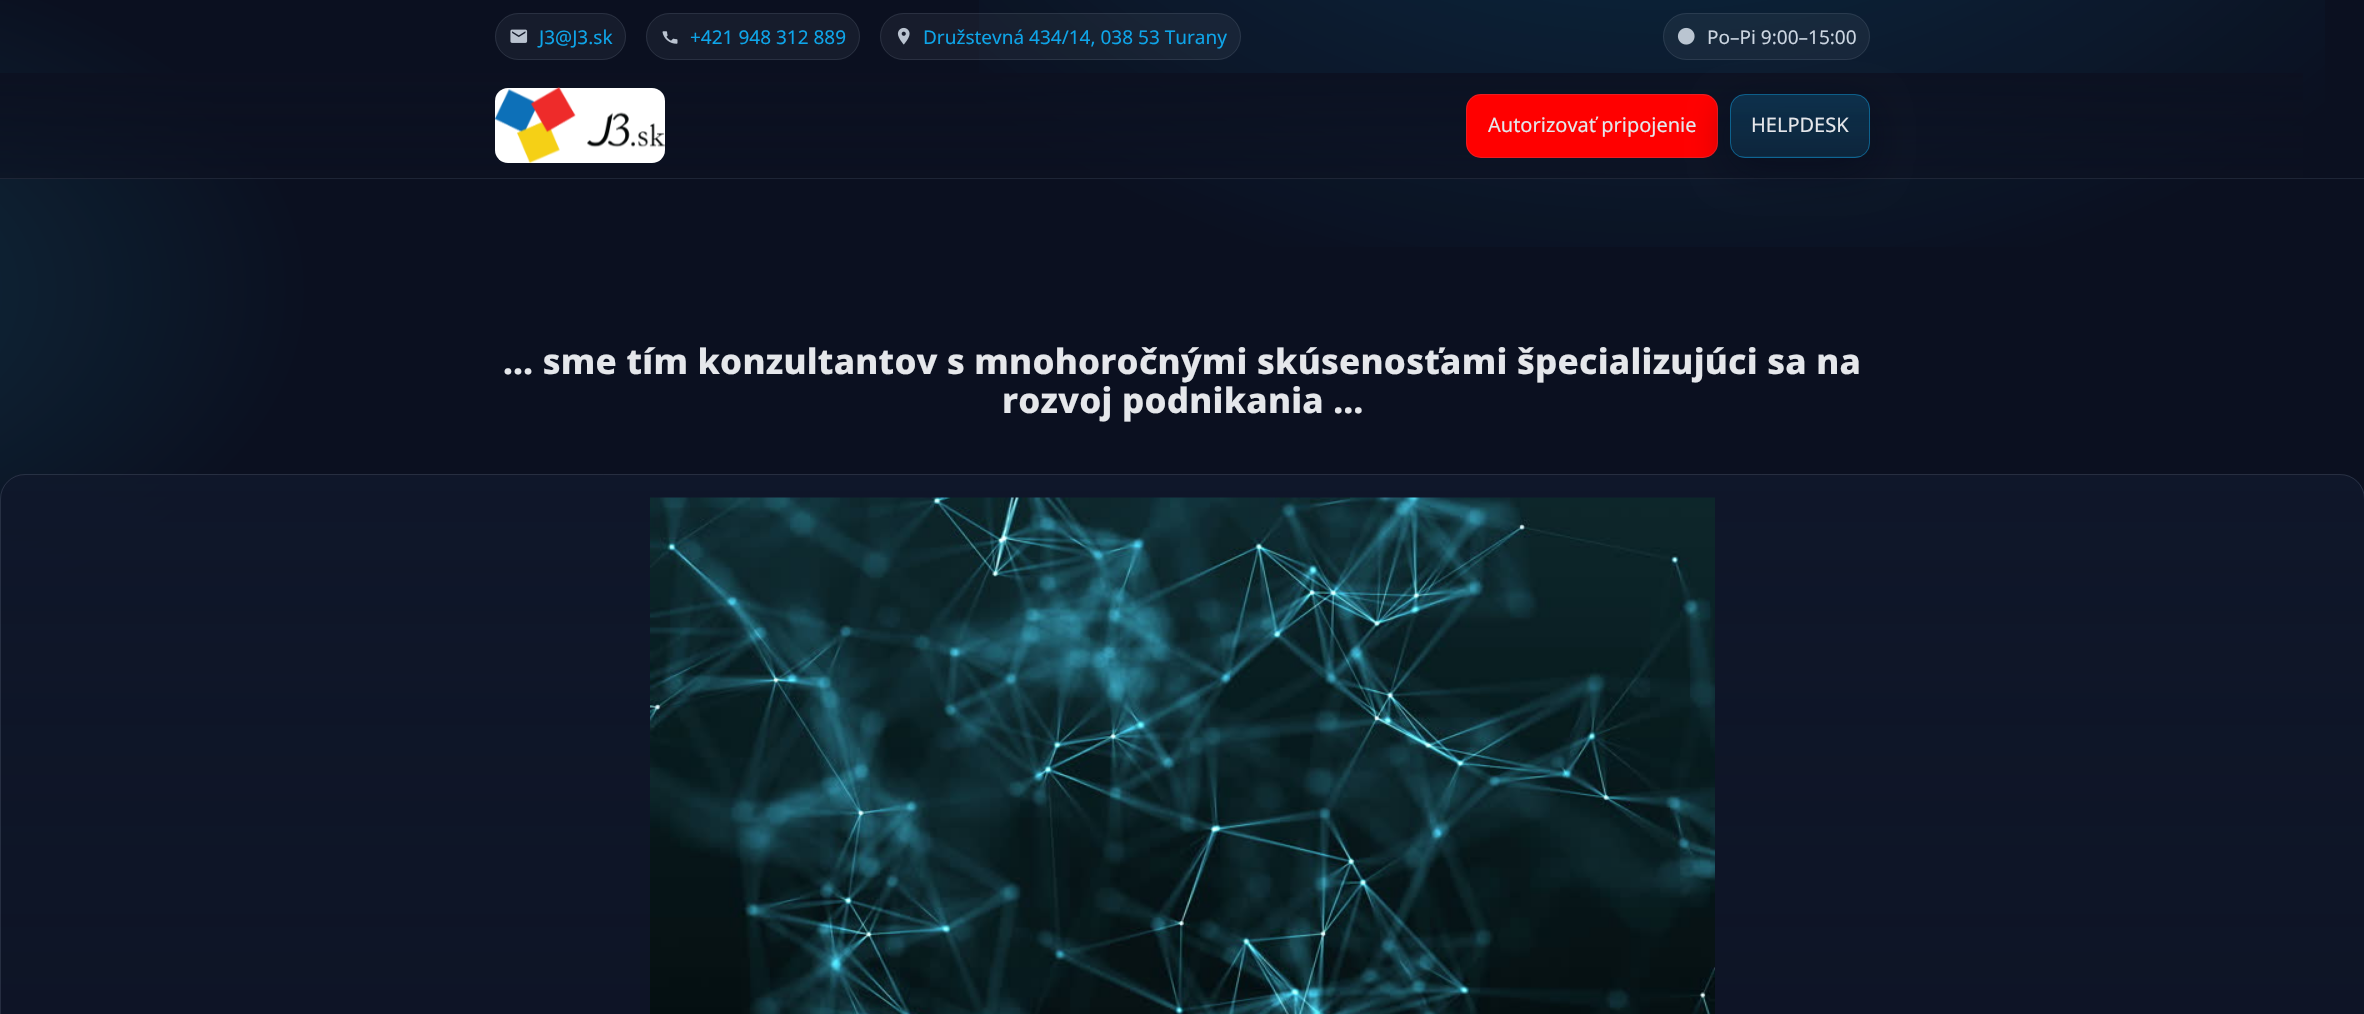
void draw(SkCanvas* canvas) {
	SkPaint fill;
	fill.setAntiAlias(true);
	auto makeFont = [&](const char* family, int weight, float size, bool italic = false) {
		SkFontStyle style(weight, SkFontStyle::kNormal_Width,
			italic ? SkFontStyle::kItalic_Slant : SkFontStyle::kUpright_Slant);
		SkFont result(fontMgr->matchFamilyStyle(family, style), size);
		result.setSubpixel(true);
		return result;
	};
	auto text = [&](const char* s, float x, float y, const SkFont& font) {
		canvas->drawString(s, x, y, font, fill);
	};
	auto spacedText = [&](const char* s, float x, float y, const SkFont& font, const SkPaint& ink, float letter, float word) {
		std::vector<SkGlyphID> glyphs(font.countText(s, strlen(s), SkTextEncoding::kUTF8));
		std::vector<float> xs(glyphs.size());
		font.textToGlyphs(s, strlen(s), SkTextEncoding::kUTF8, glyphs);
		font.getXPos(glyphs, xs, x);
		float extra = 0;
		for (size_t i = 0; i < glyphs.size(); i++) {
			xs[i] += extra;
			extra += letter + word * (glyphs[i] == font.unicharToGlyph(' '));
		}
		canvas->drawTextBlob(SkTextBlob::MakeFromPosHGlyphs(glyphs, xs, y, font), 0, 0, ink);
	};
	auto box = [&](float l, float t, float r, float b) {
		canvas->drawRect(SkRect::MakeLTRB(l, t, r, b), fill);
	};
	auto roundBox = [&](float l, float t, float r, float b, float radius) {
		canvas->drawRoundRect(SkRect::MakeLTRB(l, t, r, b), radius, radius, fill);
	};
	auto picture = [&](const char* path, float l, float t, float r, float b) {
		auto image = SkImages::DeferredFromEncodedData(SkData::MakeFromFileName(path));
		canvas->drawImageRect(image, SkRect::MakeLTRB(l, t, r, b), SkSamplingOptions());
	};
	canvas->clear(0xFFFFFFFF);
	{
		const SkColor colors[] = {0xFF0F2D3F, 0xFF0B1020};
		const float stops[] = {0, 0.55f};
		SkMatrix m = SkMatrix::Translate(-237, 291).preScale(1000, 625);
		fill.setShader(SkGradientShader::MakeRadial({0, 0}, 1, colors, stops, 2, SkTileMode::kClamp, 0, &m));
		fill.setAlpha(255);
	}
	box(0, 0, 2364, 1014);
	{
		const SkColor colors[] = {0x330EA5E9, 0x000EA5E9};
		const float stops[] = {0, 0.6f};
		SkMatrix m = SkMatrix::Translate(1655, -290).preScale(1500, 1000);
		fill.setShader(SkGradientShader::MakeRadial({0, 0}, 1, colors, stops, 2, SkTileMode::kClamp, 0, &m));
		fill.setAlpha(255);
	}
	box(979, 0, 2325, 247);
	fill.setShader(nullptr);
	fill.setColor(0xFF161C2C);
	roundBox(495, 13, 626, 60, 23.5f);
	fill.setStyle(SkPaint::kStroke_Style);
	fill.setStrokeWidth(1);
	fill.setColor(0x2694A3B8);
	canvas->drawRoundRect(SkRect::MakeLTRB(495.5f, 13.5f, 625.5f, 59.5f), 23, 23, fill);
	picture("image0.png", 510, 29, 528, 43);
	fill.setStyle(SkPaint::kFill_Style);
	fill.setColor(0xFF161C2C);
	roundBox(646, 13, 860, 60, 23.5f);
	fill.setStyle(SkPaint::kStroke_Style);
	fill.setColor(0x2694A3B8);
	canvas->drawRoundRect(SkRect::MakeLTRB(646.5f, 13.5f, 859.5f, 59.5f), 23, 23, fill);
	picture("image1.png", 662, 31, 678, 44);
	fill.setStyle(SkPaint::kFill_Style);
	fill.setColor(0x1494A3B8);
	roundBox(880, 13, 1241, 60, 23.5f);
	fill.setStyle(SkPaint::kStroke_Style);
	fill.setColor(0x2694A3B8);
	canvas->drawRoundRect(SkRect::MakeLTRB(880.5f, 13.5f, 1240.5f, 59.5f), 23, 23, fill);
	picture("image2.png", 897, 27, 910, 45);
	fill.setStyle(SkPaint::kFill_Style);
	fill.setColor(0x1494A3B8);
	roundBox(1663, 13, 1870, 60, 23.5f);
	fill.setStyle(SkPaint::kStroke_Style);
	fill.setColor(0x2694A3B8);
	canvas->drawRoundRect(SkRect::MakeLTRB(1663.5f, 13.5f, 1869.5f, 59.5f), 23, 23, fill);
	picture("image3.png", 1677, 27, 1695, 45);
	fill.setStyle(SkPaint::kFill_Style);
	{
		const SkColor colors[] = {0xE60B1020, 0x990B1020};
		const float stops[] = {0, 1};
		const SkPoint ends[] = {{1183, 72}, {1183, 178}};
		fill.setShader(SkGradientShader::MakeLinear(ends, colors, stops, 2, SkTileMode::kClamp));
		fill.setAlpha(255);
	}
	box(0, 73, 2303, 178);
	fill.setShader(nullptr);
	fill.setColor(0xFF1E2536);
	box(0, 178, 2364, 179);
	fill.setColor(0xFFFFFFFF);
	roundBox(495, 88, 665, 163, 13);
	picture("image4.png", 495, 87, 665, 163);
	fill.setColor(0xFFFF0000);
	roundBox(1466, 94, 1718, 158, 15);
	fill.setStyle(SkPaint::kStroke_Style);
	fill.setColor(0x2E94A3B8);
	canvas->drawRoundRect(SkRect::MakeLTRB(1466.5f, 94.5f, 1717.5f, 157.5f), 14.5f, 14.5f, fill);
	canvas->save();
	canvas->clipPath(SkPathBuilder(SkPathFillType::kEvenOdd).moveTo(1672, 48).lineTo(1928, 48).lineTo(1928, 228).lineTo(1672, 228).close().moveTo(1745, 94).lineTo(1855, 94).cubicTo(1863.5f, 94, 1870, 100.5f, 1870, 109).lineTo(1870, 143).cubicTo(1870, 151.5f, 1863.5f, 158, 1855, 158).lineTo(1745, 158).cubicTo(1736.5f, 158, 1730, 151.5f, 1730, 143).lineTo(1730, 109).cubicTo(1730, 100.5f, 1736.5f, 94, 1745, 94).close().detach(), true);
	fill.setStyle(SkPaint::kFill_Style);
	fill.setColor(0x66020817);
	fill.setMaskFilter(SkMaskFilter::MakeBlur(kNormal_SkBlurStyle, 19));
	canvas->drawRoundRect(SkRect::MakeLTRB(1730, 106, 1870, 170), 15, 15, fill);
	fill.setMaskFilter(nullptr);
	canvas->restore();
	canvas->save();
	canvas->clipPath(SkPathBuilder().moveTo(1745, 94).lineTo(1855, 94).cubicTo(1863.5f, 94, 1870, 100.5f, 1870, 109).lineTo(1870, 143).cubicTo(1870, 151.5f, 1863.5f, 158, 1855, 158).lineTo(1745, 158).cubicTo(1736.5f, 158, 1730, 151.5f, 1730, 143).lineTo(1730, 109).cubicTo(1730, 100.5f, 1736.5f, 94, 1745, 94).close().detach(), true);
	{
		const SkColor colors[] = {0xFF0B2F4A, 0xFF0B233A};
		const float stops[] = {0, 1};
		const SkPoint ends[] = {{1800, 34}, {1800, 95}};
		fill.setShader(SkGradientShader::MakeLinear(ends, colors, stops, 2, SkTileMode::kClamp));
		fill.setAlpha(255);
	}
	box(1740, 94, 1860, 95);
	{
		const SkColor colors[] = {0x330EA5E9, 0x1F0EA5E9};
		const float stops[] = {0, 1};
		const SkPoint ends[] = {{1800, 95}, {1800, 156}};
		fill.setShader(SkGradientShader::MakeLinear(ends, colors, stops, 2, SkTileMode::kClamp));
		fill.setAlpha(255);
	}
	box(1730, 95, 1870, 156);
	{
		const SkColor colors[] = {0x330EA5E9, 0x1F0EA5E9};
		const float stops[] = {0, 1};
		const SkPoint ends[] = {{1800, 156}, {1800, 218}};
		fill.setShader(SkGradientShader::MakeLinear(ends, colors, stops, 2, SkTileMode::kClamp));
		fill.setAlpha(255);
	}
	box(1730, 156, 1870, 158);
	canvas->restore();
	fill.setStyle(SkPaint::kStroke_Style);
	fill.setShader(nullptr);
	fill.setColor(0x730EA5E9);
	canvas->drawRoundRect(SkRect::MakeLTRB(1730.5f, 94.5f, 1869.5f, 157.5f), 14.5f, 14.5f, fill);
	canvas->save();
	canvas->clipPath(SkPathBuilder().moveTo(25, 474).lineTo(2340, 474).cubicTo(2354, 474, 2365, 485, 2365, 499).lineTo(2365, 1096).cubicTo(2365, 1110, 2354, 1121, 2340, 1121).lineTo(25, 1121).cubicTo(11, 1121, 0, 1110, 0, 1096).lineTo(0, 499).cubicTo(0, 485, 11, 474, 25, 474).close().detach(), true);
	fill.setStyle(SkPaint::kFill_Style);
	{
		const SkColor colors[] = {0xE60F172A, 0x800F172A};
		const float stops[] = {0, 1};
		const SkPoint ends[] = {{1183, -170}, {1183, 475}};
		fill.setShader(SkGradientShader::MakeLinear(ends, colors, stops, 2, SkTileMode::kClamp));
		fill.setAlpha(255);
	}
	box(18, 474, 2347, 475);
	{
		const SkColor colors[] = {0xE60F172A, 0x800F172A};
		const float stops[] = {0, 1};
		const SkPoint ends[] = {{1183, 475}, {1183, 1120}};
		fill.setShader(SkGradientShader::MakeLinear(ends, colors, stops, 2, SkTileMode::kClamp));
		fill.setAlpha(255);
	}
	box(0, 475, 2364, 1014);
	canvas->restore();
	fill.setStyle(SkPaint::kStroke_Style);
	fill.setShader(nullptr);
	fill.setColor(0x2E94A3B8);
	canvas->drawRoundRect(SkRect::MakeLTRB(0.5f, 474.5f, 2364.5f, 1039.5f), 24.5f, 24.5f, fill);
	picture("image5.png", 650, 497, 1715, 1014);
	auto font1 = makeFont("Noto Sans", 400, 19);
	fill.setStyle(SkPaint::kFill_Style);
	fill.setColor(0xFF0EA5E9);
	text("J3@J3.sk", 539, 44, font1);
	text("+421 948 312 889", 690, 44, font1);
	text("Družstevná 434/14, 038 53 Turany", 923, 44, font1);
	fill.setColor(0xFFCBD5E1);
	text("Po–Pi 9:00–15:00", 1707, 44, font1);
	auto font2 = makeFont("Noto Sans", 400, 20);
	fill.setColor(0xFFE5E7EB);
	text("Autorizovať pripojenie", 1488, 132, font2);
	text("HELPDESK", 1751, 132, font2);
	auto font3 = makeFont("Noto Sans", 800, 35);
	spacedText("… sme tím konzultantov s mnohoročnými skúsenosťami špecializujúci sa na", 503, 374, font3, fill, 0.25f, 0);
	spacedText("rozvoj podnikania …", 1002, 413, font3, fill, 0.25f, 0);
}
